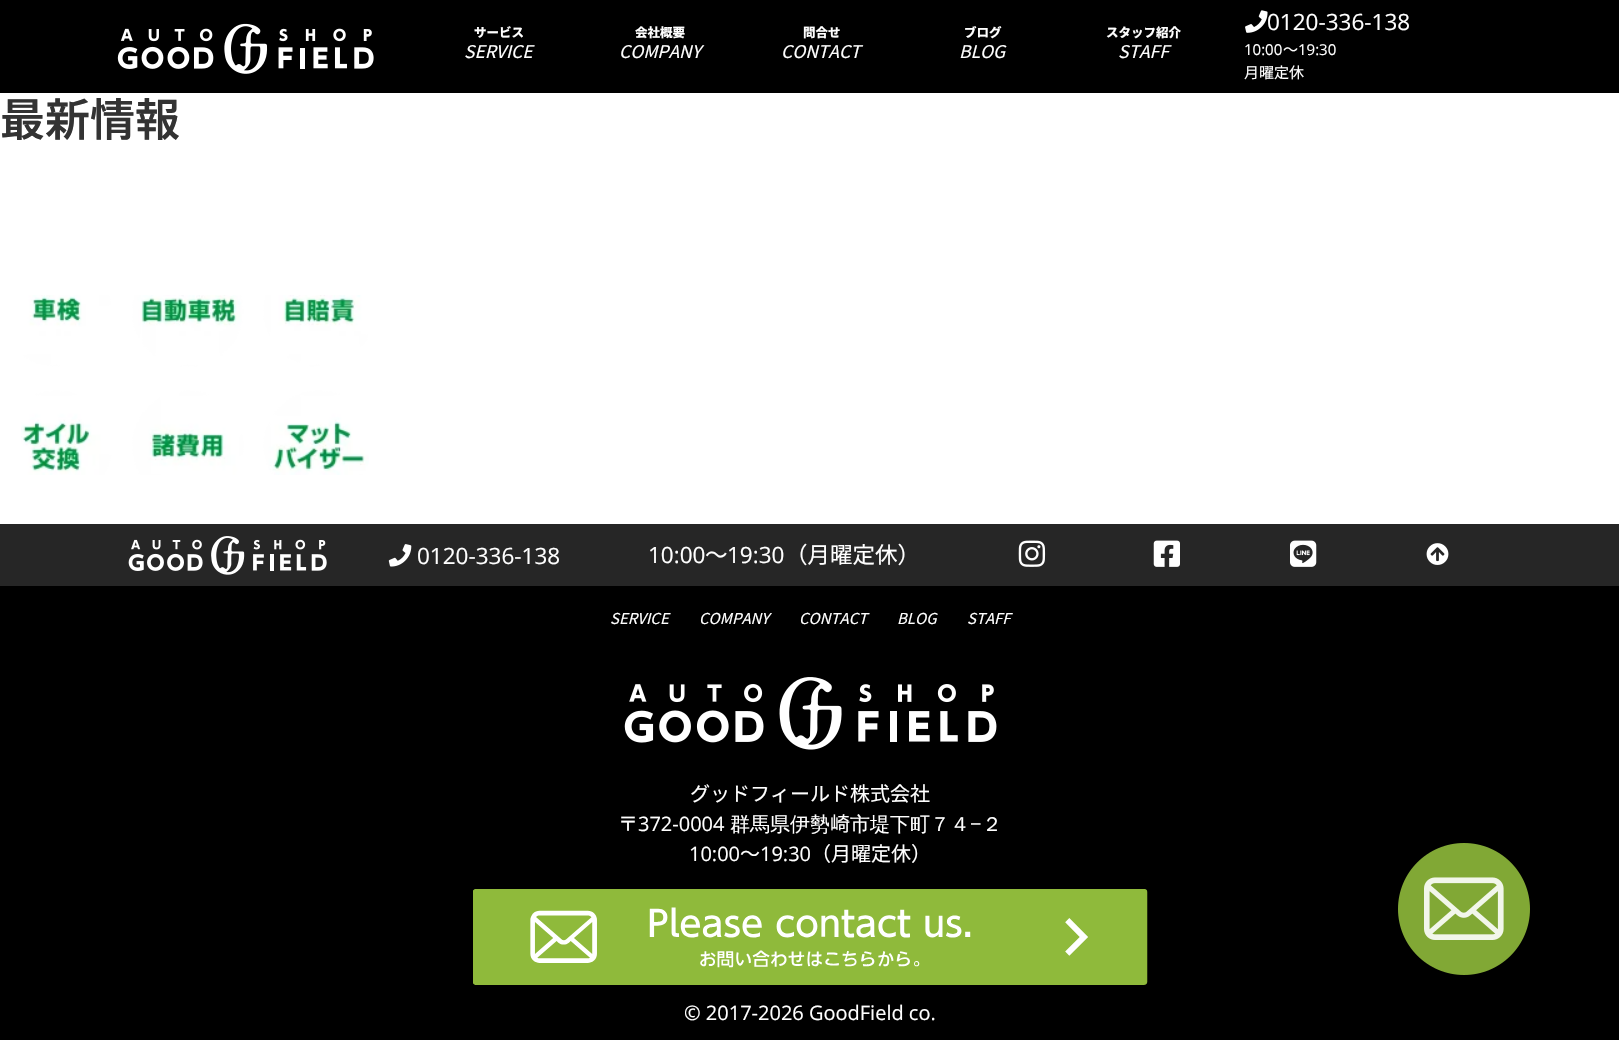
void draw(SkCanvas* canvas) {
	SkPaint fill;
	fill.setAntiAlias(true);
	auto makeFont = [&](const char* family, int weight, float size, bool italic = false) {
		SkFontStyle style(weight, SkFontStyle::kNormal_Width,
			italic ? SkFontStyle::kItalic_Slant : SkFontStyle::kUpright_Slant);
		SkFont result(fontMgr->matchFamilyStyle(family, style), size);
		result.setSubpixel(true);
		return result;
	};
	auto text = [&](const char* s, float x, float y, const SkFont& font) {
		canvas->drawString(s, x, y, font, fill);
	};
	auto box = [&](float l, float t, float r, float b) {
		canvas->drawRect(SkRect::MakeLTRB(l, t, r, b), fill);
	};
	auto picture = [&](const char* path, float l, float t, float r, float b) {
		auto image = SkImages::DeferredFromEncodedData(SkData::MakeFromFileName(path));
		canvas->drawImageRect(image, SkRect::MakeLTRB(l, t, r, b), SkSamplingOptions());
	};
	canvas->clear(0xFFFFFFFF);
	fill.setColor(0xFF000000);
	box(0, 0, 1619, 93);
	picture("image0.png", 117, 23, 374, 74);
	picture("image1.png", 1245, 10, 1268, 33);
	picture("image2.png", 21, 295, 369, 475);
	fill.setColor(0xFF262626);
	box(0, 524, 1619, 586);
	picture("image3.png", 128, 536, 327, 575);
	picture("image4.png", 388, 544, 412, 567);
	picture("image5.png", 1018, 540, 1046, 567);
	picture("image6.png", 1153, 540, 1180, 567);
	picture("image7.png", 1290, 540, 1317, 567);
	picture("image8.png", 1426, 543, 1449, 565);
	fill.setColor(0xFF000000);
	box(0, 586, 1619, 1040);
	picture("image9.png", 624, 677, 997, 750);
	picture("image10.png", 473, 889, 1148, 985);
	picture("image11.png", 1398, 843, 1530, 975);
	auto font1 = makeFont("Noto Sans JP", 800, 12.5f);
	fill.setColor(0xFFFFFFFF);
	text("サービス", 474, 37, font1);
	auto font2 = makeFont("Noto Sans JP", 400, 17.5f, true);
	text("SERVICE", 464, 58, font2);
	text("会社概要", 635, 37, font1);
	text("COMPANY", 619, 58, font2);
	text("問合せ", 803, 37, font1);
	text("CONTACT", 781, 58, font2);
	text("ブログ", 964, 37, font1);
	text("BLOG", 959, 58, font2);
	text("スタッフ紹介", 1106, 37, font1);
	text("STAFF", 1118, 58, font2);
	auto font3 = makeFont("Open Sans", 400, 22.5f);
	text("0120-336-138", 1267, 30, font3);
	auto font4 = makeFont("Open Sans", 400, 15);
	text("10:00", 1244, 55, font4);
	auto font5 = makeFont("Noto Sans JP", 400, 15);
	text("～", 1283, 55, font5);
	text("19:30", 1298, 55, font4);
	text("月曜定休", 1244, 78, font5);
	auto font6 = makeFont("Noto Sans JP", 600, 45);
	fill.setColor(0xFF333333);
	text("最新情報", 0, 136, font6);
	fill.setColor(0xFFFFFFFF);
	text("0120-336-138", 417, 564, font3);
	text("10:00", 648, 563, font3);
	auto font7 = makeFont("Noto Sans JP", 400, 22.5f);
	text("～", 705, 563, font7);
	text("19:30", 727, 563, font3);
	text("（月曜定休）", 785, 563, font7);
	auto font8 = makeFont("Noto Sans JP", 400, 15, true);
	text("SERVICE", 610, 624, font8);
	text("COMPANY", 699, 624, font8);
	text("CONTACT", 799, 624, font8);
	text("BLOG", 897, 624, font8);
	text("STAFF", 967, 624, font8);
	auto font9 = makeFont("Noto Sans JP", 400, 20);
	text("グッドフィールド株式会社", 690, 801, font9);
	text("〒", 618, 831, font9);
	auto font10 = makeFont("Open Sans", 400, 20);
	text("372-0004", 638, 831, font10);
	auto font11 = makeFont("WenQuanYi Zen Hei", 500, 20);
	text("群馬県伊勢", 730, 831, font11);
	text("崎", 830, 831, font9);
	text("市堤下町７４", 850, 831, font11);
	text("−", 970, 831, font10);
	text("２", 982, 831, font11);
	text("10:00", 689, 861, font10);
	text("～", 740, 861, font9);
	text("19:30", 760, 861, font10);
	text("（月曜定休）", 811, 861, font9);
	text("© 2017-2026 GoodField co.", 684, 1020, font10);
}
